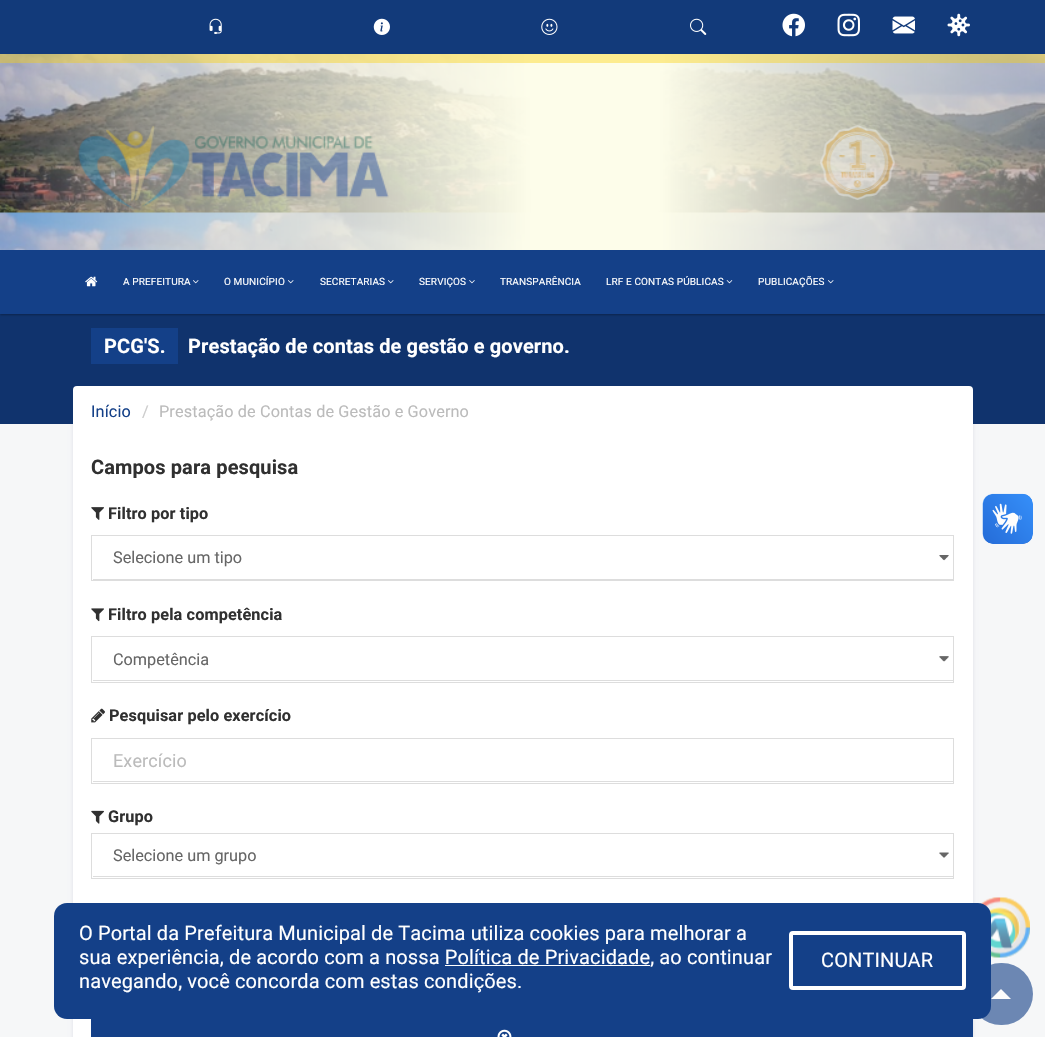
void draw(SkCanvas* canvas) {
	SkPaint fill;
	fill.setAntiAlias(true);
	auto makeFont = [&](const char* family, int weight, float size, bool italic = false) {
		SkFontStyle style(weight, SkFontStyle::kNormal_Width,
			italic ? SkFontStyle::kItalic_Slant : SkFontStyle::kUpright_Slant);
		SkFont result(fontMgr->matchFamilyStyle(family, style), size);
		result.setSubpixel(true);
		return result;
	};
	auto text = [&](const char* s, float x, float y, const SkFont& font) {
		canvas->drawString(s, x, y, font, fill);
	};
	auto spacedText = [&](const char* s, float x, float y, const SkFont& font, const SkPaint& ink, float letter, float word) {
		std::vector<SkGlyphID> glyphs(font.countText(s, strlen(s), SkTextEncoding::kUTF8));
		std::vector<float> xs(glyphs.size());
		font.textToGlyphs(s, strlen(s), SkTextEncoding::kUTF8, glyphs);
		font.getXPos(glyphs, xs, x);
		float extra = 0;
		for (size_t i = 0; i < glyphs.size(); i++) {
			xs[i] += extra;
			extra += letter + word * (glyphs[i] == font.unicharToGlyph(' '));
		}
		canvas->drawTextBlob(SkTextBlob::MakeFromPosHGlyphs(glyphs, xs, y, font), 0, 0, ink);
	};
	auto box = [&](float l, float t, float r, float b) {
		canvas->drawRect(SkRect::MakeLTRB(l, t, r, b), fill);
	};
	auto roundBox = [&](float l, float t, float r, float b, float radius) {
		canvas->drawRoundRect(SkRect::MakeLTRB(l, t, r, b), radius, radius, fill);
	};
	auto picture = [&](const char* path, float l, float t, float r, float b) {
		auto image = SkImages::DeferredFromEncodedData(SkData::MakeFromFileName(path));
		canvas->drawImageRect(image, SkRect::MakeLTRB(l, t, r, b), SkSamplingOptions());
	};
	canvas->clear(0xFFF6F7F8);
	fill.setColor(0x17030047);
	fill.setMaskFilter(SkMaskFilter::MakeBlur(kNormal_SkBlurStyle, 2));
	canvas->drawRect(SkRect::MakeLTRB(73, 388, 973, 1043), fill);
	fill.setMaskFilter(nullptr);
	fill.setColor(0xFF10336D);
	box(0, 314, 1045, 424);
	fill.setColor(0x4D000000);
	fill.setMaskFilter(SkMaskFilter::MakeBlur(kNormal_SkBlurStyle, 1));
	canvas->drawRect(SkRect::MakeLTRB(0, 1, 1045, 315), fill);
	fill.setMaskFilter(nullptr);
	picture("image0.png", 0, 54, 1045, 250);
	fill.setColor(0xFF123A7A);
	box(0, 0, 1045, 54);
	picture("image1.png", 209, 18, 222, 34);
	picture("image2.png", 373, 18, 390, 35);
	picture("image3.png", 541, 18, 558, 35);
	picture("image4.png", 690, 18, 707, 35);
	picture("image5.png", 782, 13, 805, 37);
	picture("image6.png", 837, 13, 860, 37);
	picture("image7.png", 892, 16, 915, 34);
	picture("image8.png", 947, 13, 970, 37);
	fill.setColor(0x63FDD000);
	box(0, 54, 174, 63);
	box(174, 54, 349, 63);
	box(349, 54, 523, 63);
	box(523, 54, 696, 63);
	box(696, 54, 871, 63);
	box(871, 54, 1045, 63);
	picture("image9.png", 78, 126, 389, 210);
	picture("image10.png", 820, 125, 895, 200);
	fill.setColor(0xFF144088);
	box(0, 250, 1045, 314);
	picture("image11.png", 85, 276, 98, 287);
	picture("image12.png", 193, 280, 199, 284);
	picture("image12.png", 288, 280, 294, 284);
	picture("image12.png", 388, 280, 394, 284);
	picture("image13.png", 469, 280, 475, 284);
	picture("image14.png", 726, 280, 733, 284);
	picture("image12.png", 828, 280, 834, 284);
	box(91, 328, 178, 364);
	fill.setColor(0xFFFFFFFF);
	box(73, 432, 973, 1037);
	roundBox(73, 386, 973, 436, 4);
	picture("image15.png", 91, 507, 104, 520);
	picture("image16.png", 939, 555, 949, 561);
	fill.setColor(0xFFDDDDDD);
	box(93, 579, 953, 580);
	fill.setStyle(SkPaint::kStroke_Style);
	fill.setStrokeWidth(1);
	canvas->drawRect(SkRect::MakeLTRB(91.5f, 535.5f, 953.5f, 580.5f), fill);
	picture("image17.png", 91, 608, 104, 622);
	picture("image18.png", 939, 656, 949, 662);
	fill.setStyle(SkPaint::kFill_Style);
	box(93, 680, 953, 681);
	fill.setStyle(SkPaint::kStroke_Style);
	canvas->drawRect(SkRect::MakeLTRB(91.5f, 636.5f, 953.5f, 682.5f), fill);
	picture("image19.png", 91, 708, 105, 723);
	fill.setStyle(SkPaint::kFill_Style);
	box(93, 781, 953, 782);
	fill.setStyle(SkPaint::kStroke_Style);
	canvas->drawRect(SkRect::MakeLTRB(91.5f, 738.5f, 953.5f, 783.5f), fill);
	picture("image20.png", 91, 810, 104, 824);
	picture("image21.png", 939, 852, 949, 858);
	fill.setStyle(SkPaint::kFill_Style);
	box(93, 876, 953, 877);
	fill.setStyle(SkPaint::kStroke_Style);
	canvas->drawRect(SkRect::MakeLTRB(91.5f, 833.5f, 953.5f, 878.5f), fill);
	fill.setStyle(SkPaint::kFill_Style);
	fill.setColor(0xFF144088);
	box(91, 1019, 973, 1037);
	picture("image22.png", 497, 1029, 512, 1037);
	picture("image23.png", 982, 493, 1033, 544);
	picture("image24.png", 983, 494, 1033, 544);
	picture("image25.png", 980, 897, 1030, 958);
	fill.setColor(0x9C144088);
	roundBox(970, 963, 1033, 1025, 31);
	fill.setColor(0xFF144088);
	roundBox(54, 903, 991, 1019, 13);
	fill.setColor(0xFFFFFFFF);
	box(445, 965, 650, 966);
	fill.setStyle(SkPaint::kStroke_Style);
	fill.setStrokeWidth(4);
	canvas->drawRoundRect(SkRect::MakeLTRB(791, 933, 964, 988), 2, 2, fill);
	fill.setStyle(SkPaint::kFill_Style);
	fill.setColor(0xFFFCFCFC);
	canvas->drawPath(SkPathBuilder().moveTo(1011, 999).lineTo(991, 999).lineTo(1001, 989).close().detach(), fill);
	auto font1 = makeFont("Roboto", 400, 10);
	fill.setColor(0xFFFFFFFF);
	spacedText("A PREFEITURA", 123, 285, font1, fill, 0.12f, 0);
	spacedText("O MUNICÍPIO", 224, 285, font1, fill, 0.12f, 0);
	spacedText("SECRETARIAS", 320, 285, font1, fill, 0.12f, 0);
	spacedText("SERVIÇOS", 419, 285, font1, fill, 0.12f, 0);
	spacedText("TRANSPARÊNCIA", 500, 285, font1, fill, 0.12f, 0);
	spacedText("LRF E CONTAS PÚBLICAS", 606, 285, font1, fill, 0.12f, 0);
	spacedText("PUBLICAÇÕES", 758, 285, font1, fill, 0.12f, 0);
	auto font2 = makeFont("Roboto", 700, 20);
	spacedText("PCG'S.", 104, 353, font2, fill, 0.12f, 0);
	spacedText("Prestação de contas de gestão e governo.", 188, 353, font2, fill, 0.12f, 0);
	auto font3 = makeFont("Roboto", 400, 16.25f);
	fill.setColor(0xFF144088);
	spacedText("Início", 91, 417, font3, fill, 0.12f, 0);
	fill.setColor(0xFFCCCCCC);
	spacedText("/", 142, 417, font3, fill, 0.12f, 0);
	fill.setColor(0xFFBBBBBB);
	spacedText("Prestação de Contas de Gestão e Governo", 159, 417, font3, fill, 0.12f, 0);
	fill.setColor(0xFF303030);
	spacedText("Campos para pesquisa", 91, 474, font2, fill, 0.12f, 0);
	auto font4 = makeFont("Roboto", 700, 16.25f);
	spacedText("Filtro por tipo", 108, 519, font4, fill, 0.12f, 0);
	fill.setColor(0xFF666666);
	text("Selecione um tipo", 113, 563, font3);
	fill.setColor(0xFF303030);
	spacedText("Filtro pela competência", 108, 620, font4, fill, 0.12f, 0);
	fill.setColor(0xFF666666);
	text("Competência", 113, 665, font3);
	fill.setColor(0xFF303030);
	spacedText("Pesquisar pelo exercício", 109, 721, font4, fill, 0.12f, 0);
	auto font5 = makeFont("Roboto", 400, 18);
	fill.setColor(0xFFBBBBBB);
	spacedText("Exercício", 113, 767, font5, fill, 0.12f, 0);
	fill.setColor(0xFF303030);
	spacedText("Grupo", 108, 822, font4, fill, 0.12f, 0);
	fill.setColor(0xFF666666);
	text("Selecione um grupo", 113, 861, font3);
	auto font6 = makeFont("Roboto", 400, 20);
	fill.setColor(0xFFFFFFFF);
	spacedText("O Portal da Prefeitura Municipal de Tacima utiliza cookies para melhorar a", 79, 940, font6, fill, 0.12f, 0);
	spacedText("sua experiência, de acordo com a nossa Política de Privacidade, ao continuar", 79, 964, font6, fill, 0.12f, 0);
	spacedText("navegando, você concorda com estas condições.", 79, 988, font6, fill, 0.12f, 0);
	spacedText("CONTINUAR", 821, 967, font6, fill, 0.12f, 0);
}
